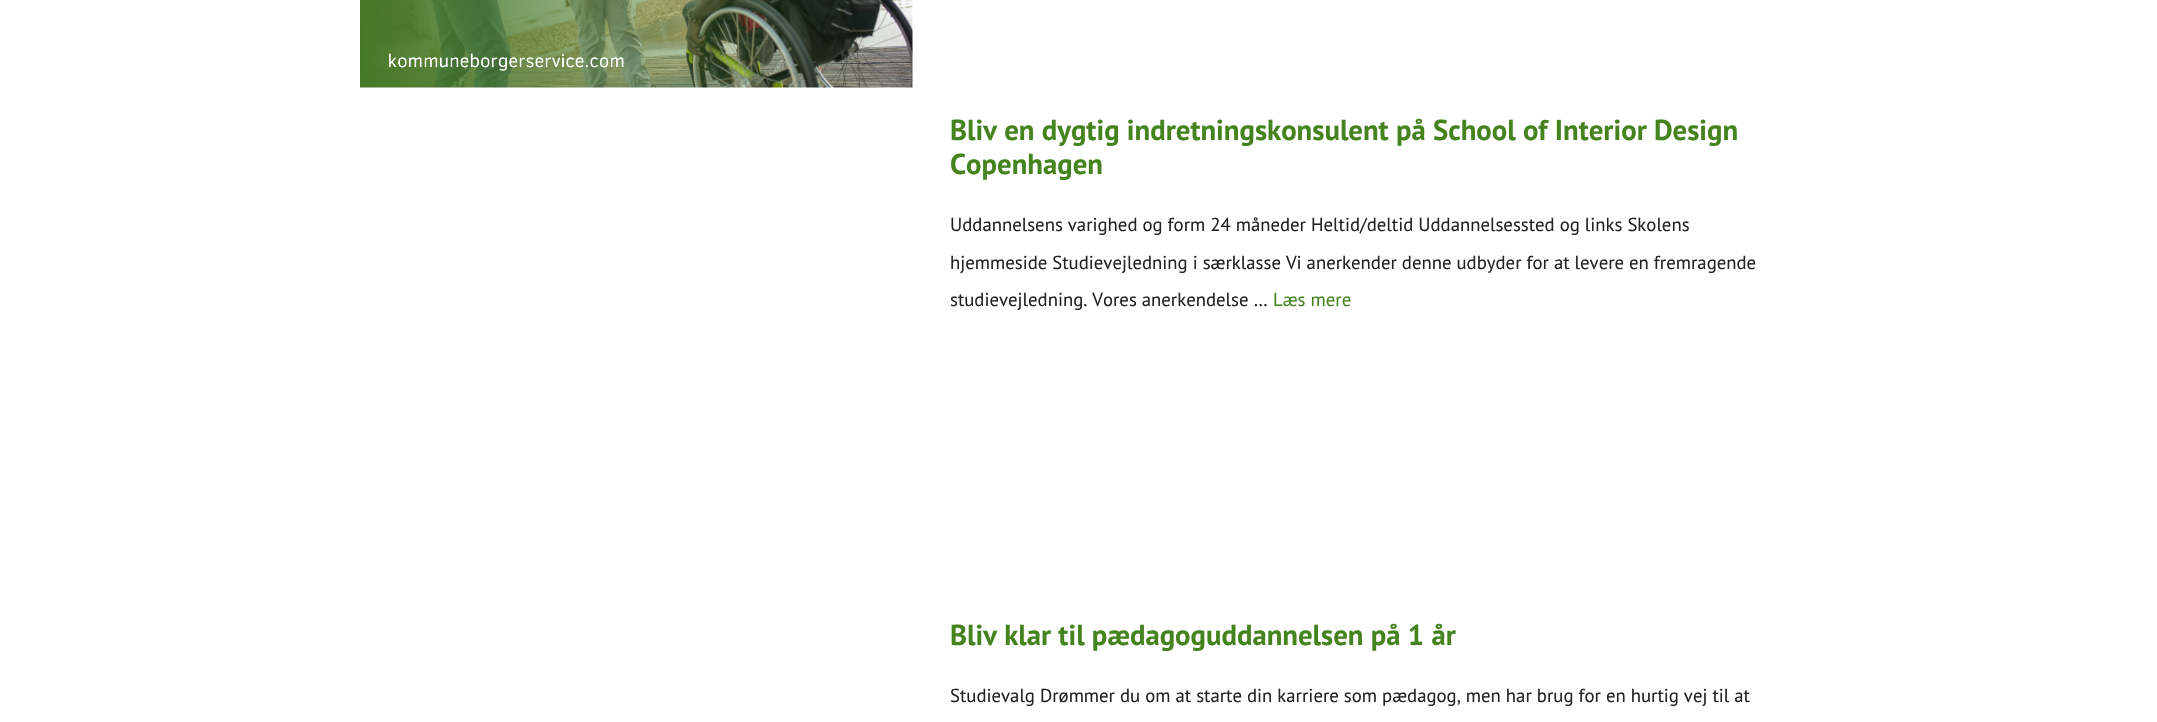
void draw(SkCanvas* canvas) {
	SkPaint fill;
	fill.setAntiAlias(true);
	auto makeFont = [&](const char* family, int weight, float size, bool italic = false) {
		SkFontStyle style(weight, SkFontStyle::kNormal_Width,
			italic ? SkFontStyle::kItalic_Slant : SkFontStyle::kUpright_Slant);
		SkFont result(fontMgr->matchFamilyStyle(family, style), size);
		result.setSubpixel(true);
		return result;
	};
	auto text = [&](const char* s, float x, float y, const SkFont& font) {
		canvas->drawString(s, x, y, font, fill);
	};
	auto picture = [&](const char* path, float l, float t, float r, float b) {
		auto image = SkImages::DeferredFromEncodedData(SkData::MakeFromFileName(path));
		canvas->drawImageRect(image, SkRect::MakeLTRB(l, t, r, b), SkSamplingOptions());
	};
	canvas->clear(0xFFFFFFFF);
	picture("image0.png", 360, 0, 913, 88);
	auto font1 = makeFont("PT Sans", 700, 28.75f);
	fill.setColor(0xFF44831E);
	text("Bliv en dygtig indretningskonsulent på School of Interior Design", 950, 140, font1);
	text("Copenhagen", 950, 174, font1);
	auto font2 = makeFont("PT Sans", 400, 18.75f);
	fill.setColor(0xFF222222);
	text("Uddannelsens varighed og form 24 måneder Heltid/deltid Uddannelsessted og links Skolens", 950, 231, font2);
	text("hjemmeside Studievejledning i særklasse Vi anerkender denne udbyder for at levere en fremragende", 950, 269, font2);
	text("studievejledning. Vores anerkendelse …", 950, 306, font2);
	fill.setColor(0xFF44831E);
	text("Læs mere", 1273, 306, font2);
	text("Bliv klar til pædagoguddannelsen på 1 år", 950, 645, font1);
	fill.setColor(0xFF222222);
	text("Studievalg Drømmer du om at starte din karriere som pædagog, men har brug for en hurtig vej til at", 950, 702, font2);
}
